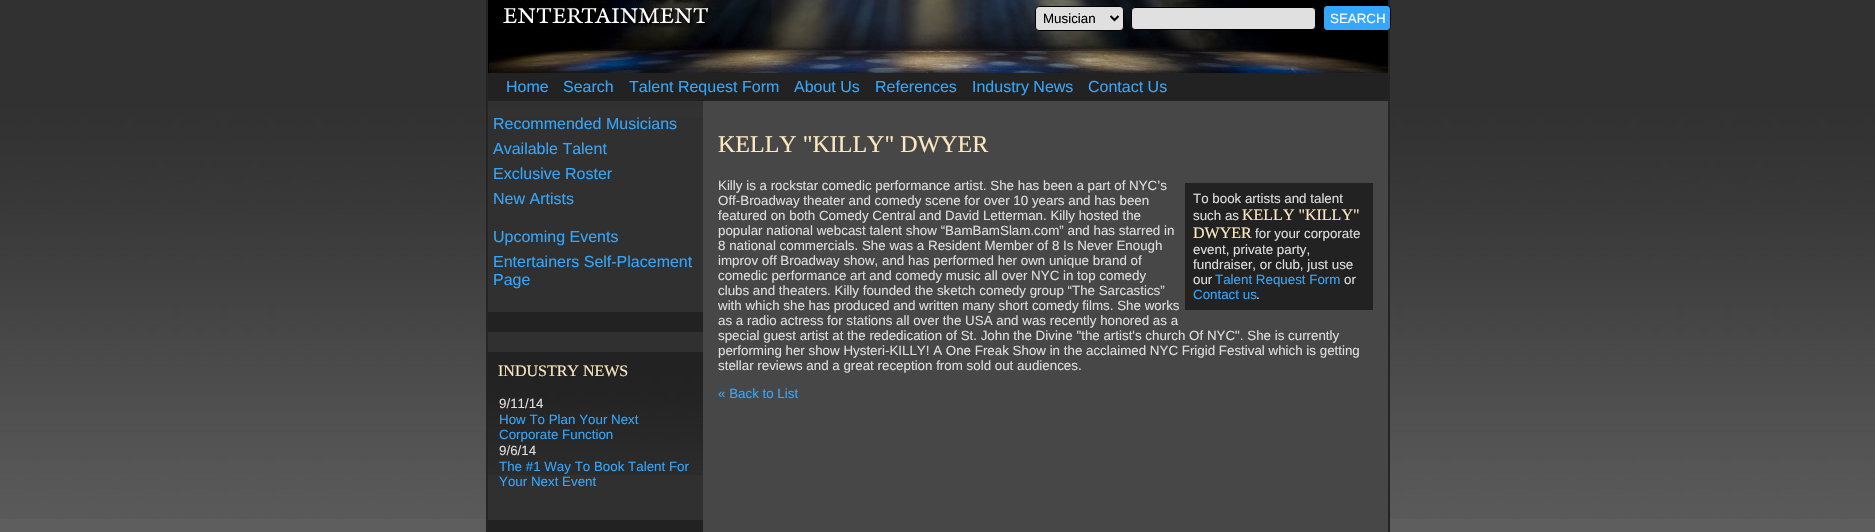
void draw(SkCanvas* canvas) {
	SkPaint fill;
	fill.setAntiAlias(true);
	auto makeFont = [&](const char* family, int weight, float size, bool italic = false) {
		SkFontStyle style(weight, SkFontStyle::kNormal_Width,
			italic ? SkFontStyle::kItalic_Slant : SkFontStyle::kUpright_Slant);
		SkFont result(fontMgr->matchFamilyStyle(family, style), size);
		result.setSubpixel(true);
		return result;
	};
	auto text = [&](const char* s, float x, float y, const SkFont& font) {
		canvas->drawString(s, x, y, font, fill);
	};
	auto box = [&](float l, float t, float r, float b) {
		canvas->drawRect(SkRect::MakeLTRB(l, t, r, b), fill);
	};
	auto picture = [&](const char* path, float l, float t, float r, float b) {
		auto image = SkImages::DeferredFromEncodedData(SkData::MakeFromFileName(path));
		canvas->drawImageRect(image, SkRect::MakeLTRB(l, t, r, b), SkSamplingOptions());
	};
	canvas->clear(0xFF5E5E5E);
	picture("image0.png", 0, 0, 1875, 519);
	fill.setColor(0xFF242424);
	box(486, 0, 488, 532);
	picture("image1.png", 488, 0, 1388, 73);
	fill.setColor(0xFFE0E0E0);
	canvas->drawRoundRect(SkRect::MakeLTRB(1035.5f, 6.5f, 1123.5f, 30.5f), 3.5f, 3.5f, fill);
	fill.setStyle(SkPaint::kStroke_Style);
	fill.setStrokeWidth(1);
	fill.setColor(0xFF000000);
	canvas->drawRoundRect(SkRect::MakeLTRB(1035.5f, 6.5f, 1123.5f, 30.5f), 3.5f, 3.5f, fill);
	fill.setStrokeWidth(2);
	canvas->drawPath(SkPathBuilder().moveTo(1110.5f, 16).lineTo(1114.5f, 20).lineTo(1118.5f, 16).detach(), fill);
	fill.setStyle(SkPaint::kFill_Style);
	fill.setColor(0xFFE0E0E0);
	canvas->drawRoundRect(SkRect::MakeLTRB(1131.5f, 7.5f, 1315.5f, 29.5f), 3.5f, 3.5f, fill);
	fill.setStyle(SkPaint::kStroke_Style);
	fill.setStrokeWidth(1);
	fill.setColor(0xFF000000);
	canvas->drawRoundRect(SkRect::MakeLTRB(1131.5f, 7.5f, 1315.5f, 29.5f), 3.5f, 3.5f, fill);
	fill.setStyle(SkPaint::kFill_Style);
	fill.setColor(0xFF242424);
	box(1388, 0, 1390, 532);
	fill.setColor(0xFF35A6FC);
	canvas->drawRoundRect(SkRect::MakeLTRB(1323.5f, 5.5f, 1390.5f, 30.5f), 3.5f, 3.5f, fill);
	fill.setStyle(SkPaint::kStroke_Style);
	fill.setColor(0xFF000000);
	canvas->drawRoundRect(SkRect::MakeLTRB(1323.5f, 5.5f, 1390.5f, 30.5f), 3.5f, 3.5f, fill);
	fill.setStyle(SkPaint::kFill_Style);
	fill.setColor(0xFF222222);
	box(488, 73, 1388, 101);
	fill.setColor(0xFF303030);
	box(488, 117, 703, 520);
	fill.setColor(0xFF222222);
	box(488, 312, 703, 332);
	picture("image2.png", 488, 352, 703, 475);
	box(488, 520, 703, 532);
	fill.setColor(0xFF474747);
	box(703, 101, 1388, 532);
	fill.setColor(0xFF222222);
	box(1185, 183, 1373, 310);
	auto font1 = makeFont("Liberation Sans", 400, 13.35f);
	fill.setColor(0xFF000000);
	text("Musician", 1043, 23, font1);
	fill.setColor(0xFFFFFFFF);
	text("SEARCH", 1330, 23, font1);
	auto font2 = makeFont("Liberation Sans", 400, 16);
	fill.setColor(0xFF35A6FC);
	text("Home", 506, 92, font2);
	text("Search", 563, 92, font2);
	text("Talent Request Form", 629, 92, font2);
	text("About Us", 794, 92, font2);
	text("References", 875, 92, font2);
	text("Industry News", 972, 92, font2);
	text("Contact Us", 1088, 92, font2);
	text("Recommended Musicians", 493, 129, font2);
	text("Available Talent", 493, 154, font2);
	text("Exclusive Roster", 493, 179, font2);
	text("New Artists", 493, 204, font2);
	text("Upcoming Events", 493, 242, font2);
	text("Entertainers Self-Placement", 493, 267, font2);
	text("Page", 493, 285, font2);
	auto font3 = makeFont("Liberation Serif", 400, 16);
	fill.setColor(0xFFFCE7BF);
	text("INDUSTRY NEWS", 498, 376, font3);
	fill.setColor(0xFFDDDDDD);
	text("9/11/14", 499, 408, font1);
	fill.setColor(0xFF35A6FC);
	text("How To Plan Your Next", 499, 424, font1);
	text("Corporate Function", 499, 439, font1);
	fill.setColor(0xFFDDDDDD);
	text("9/6/14", 499, 455, font1);
	fill.setColor(0xFF35A6FC);
	text("The #1 Way To Book Talent For", 499, 471, font1);
	text("Your Next Event", 499, 486, font1);
	auto font4 = makeFont("Liberation Serif", 400, 24);
	fill.setColor(0xFFFCE7BF);
	text("KELLY \"KILLY\" DWYER", 718, 152, font4);
	fill.setColor(0xFFDDDDDD);
	text("Killy is a rockstar comedic performance artist. She has been a part of NYC’s", 718, 190, font1);
	text("Off-Broadway theater and comedy scene for over 10 years and has been", 718, 205, font1);
	text("To book artists and talent", 1193, 203, font1);
	text("such as", 1193, 220, font1);
	fill.setColor(0xFFFCE7BF);
	text("KELLY \"KILLY\"", 1242, 220, font3);
	text("DWYER", 1193, 238, font3);
	fill.setColor(0xFFDDDDDD);
	text("for your corporate", 1255, 238, font1);
	text("event, private party,", 1193, 254, font1);
	text("fundraiser, or club, just use", 1193, 269, font1);
	text("our", 1193, 284, font1);
	fill.setColor(0xFF35A6FC);
	text("Talent Request Form", 1215, 284, font1);
	fill.setColor(0xFFDDDDDD);
	text("or", 1344, 284, font1);
	fill.setColor(0xFF35A6FC);
	text("Contact us", 1193, 299, font1);
	fill.setColor(0xFFDDDDDD);
	text(".", 1256, 299, font1);
	text("featured on both Comedy Central and David Letterman. Killy hosted the", 718, 220, font1);
	text("popular national webcast talent show “BamBamSlam.com” and has starred in", 718, 235, font1);
	text("8 national commercials. She was a Resident Member of 8 Is Never Enough", 718, 250, font1);
	text("improv off Broadway show, and has performed her own unique brand of", 718, 265, font1);
	text("comedic performance art and comedy music all over NYC in top comedy", 718, 280, font1);
	text("clubs and theaters. Killy founded the sketch comedy group “The Sarcastics”", 718, 295, font1);
	text("with which she has produced and written many short comedy films. She works", 718, 310, font1);
	text("as a radio actress for stations all over the USA and was recently honored as a", 718, 325, font1);
	text("special guest artist at the rededication of St. John the Divine \"the artist's church Of NYC\". She is currently", 718, 340, font1);
	text("performing her show Hysteri-KILLY! A One Freak Show in the acclaimed NYC Frigid Festival which is getting", 718, 355, font1);
	text("stellar reviews and a great reception from sold out audiences.", 718, 370, font1);
	fill.setColor(0xFF35A6FC);
	text("« Back to List", 718, 398, font1);
}
